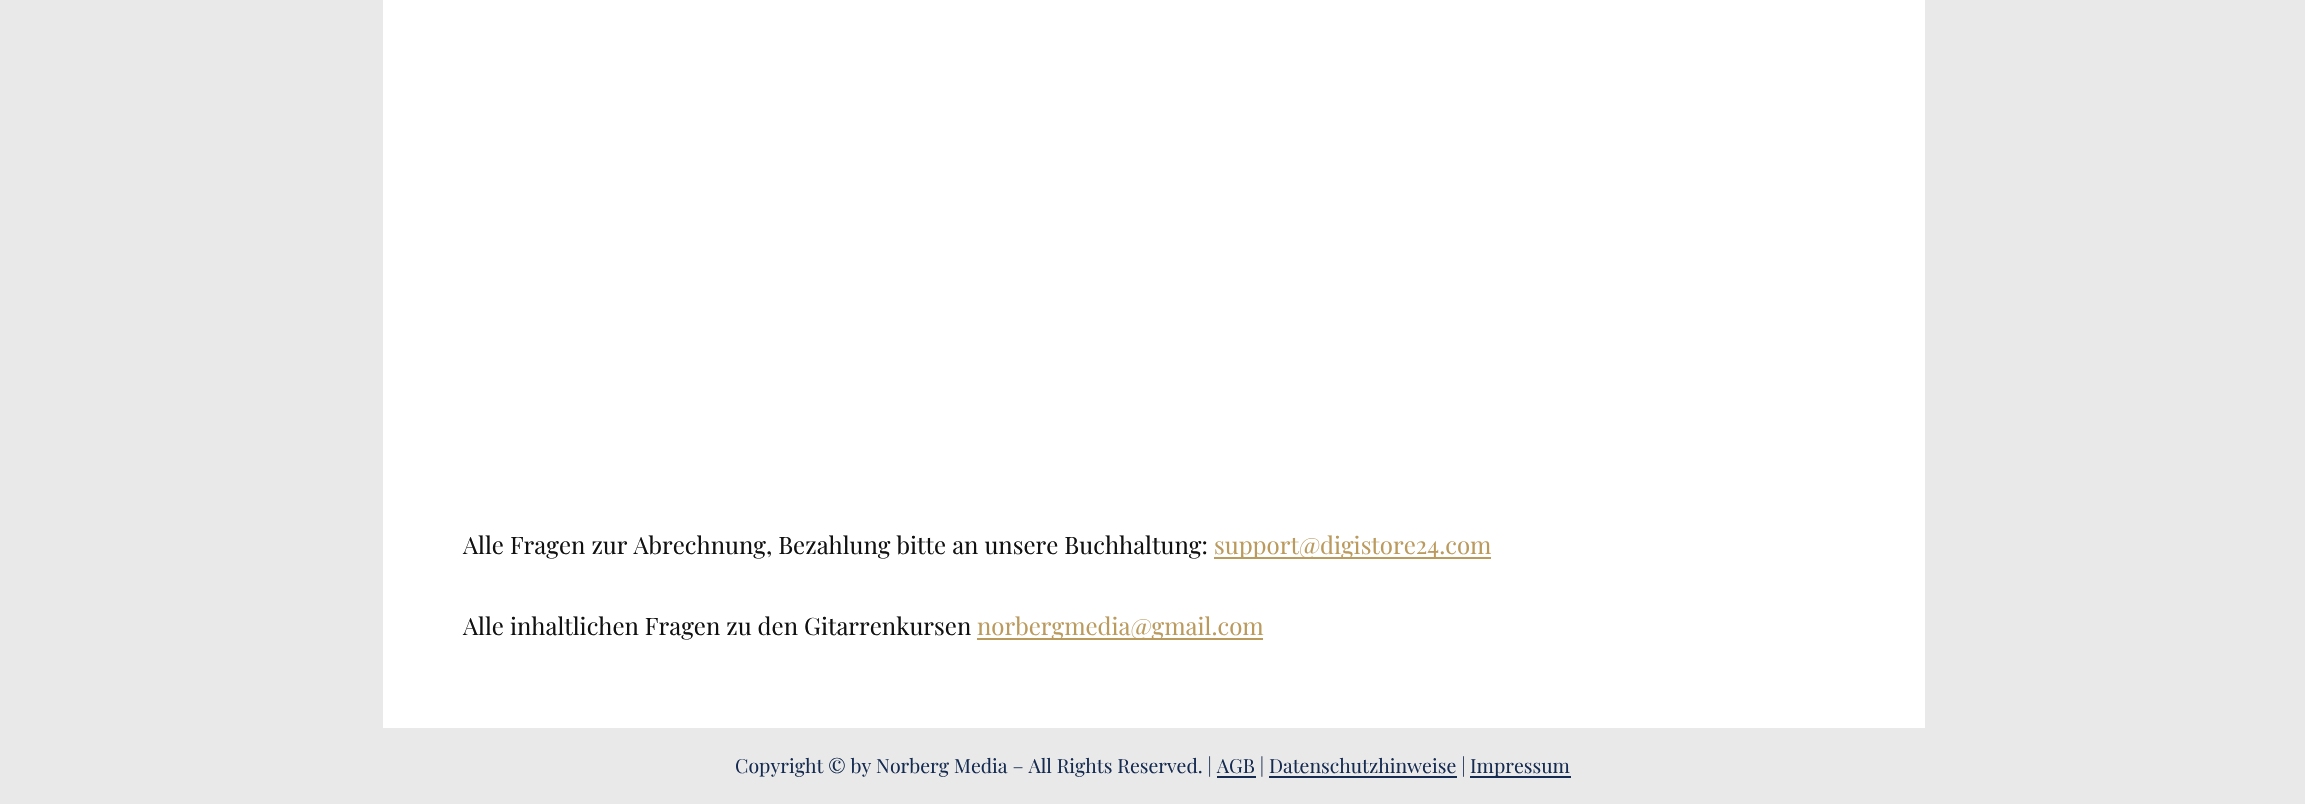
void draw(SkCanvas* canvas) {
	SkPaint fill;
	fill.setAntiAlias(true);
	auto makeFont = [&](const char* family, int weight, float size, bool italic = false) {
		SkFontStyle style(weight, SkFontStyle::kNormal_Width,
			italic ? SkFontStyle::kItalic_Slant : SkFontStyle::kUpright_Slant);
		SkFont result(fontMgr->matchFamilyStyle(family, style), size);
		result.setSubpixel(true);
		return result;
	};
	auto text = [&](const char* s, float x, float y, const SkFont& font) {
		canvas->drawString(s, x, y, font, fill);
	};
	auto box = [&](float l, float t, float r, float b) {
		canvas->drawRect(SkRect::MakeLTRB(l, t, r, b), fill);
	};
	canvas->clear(0xFFE9E9E9);
	fill.setColor(0xFFFFFFFF);
	box(383, 0, 1925, 728);
	fill.setColor(0xFFBB9A5D);
	box(1214, 557, 1491, 559);
	box(977, 638, 1263, 640);
	fill.setColor(0xFF162B51);
	box(1470, 776, 1571, 778);
	box(1217, 776, 1256, 778);
	box(1269, 776, 1457, 778);
	auto font1 = makeFont("Playfair Display", 400, 24);
	fill.setColor(0xFF111111);
	text("Alle Fragen zur Abrechnung, Bezahlung bitte an unsere Buchhaltung:", 463, 554, font1);
	fill.setColor(0xFFBB9A5D);
	text("support@digistore24.com", 1214, 554, font1);
	fill.setColor(0xFF111111);
	text("Alle inhaltlichen Fragen zu den Gitarrenkursen", 463, 635, font1);
	fill.setColor(0xFFBB9A5D);
	text("norbergmedia@gmail.com", 977, 635, font1);
	auto font2 = makeFont("Playfair Display", 400, 19.5f);
	fill.setColor(0xFF162B51);
	text("Copyright © by Norberg Media – All Rights Reserved. | AGB | Datenschutzhinweise |", 735, 773, font2);
	text("Impressum", 1470, 773, font2);
}
